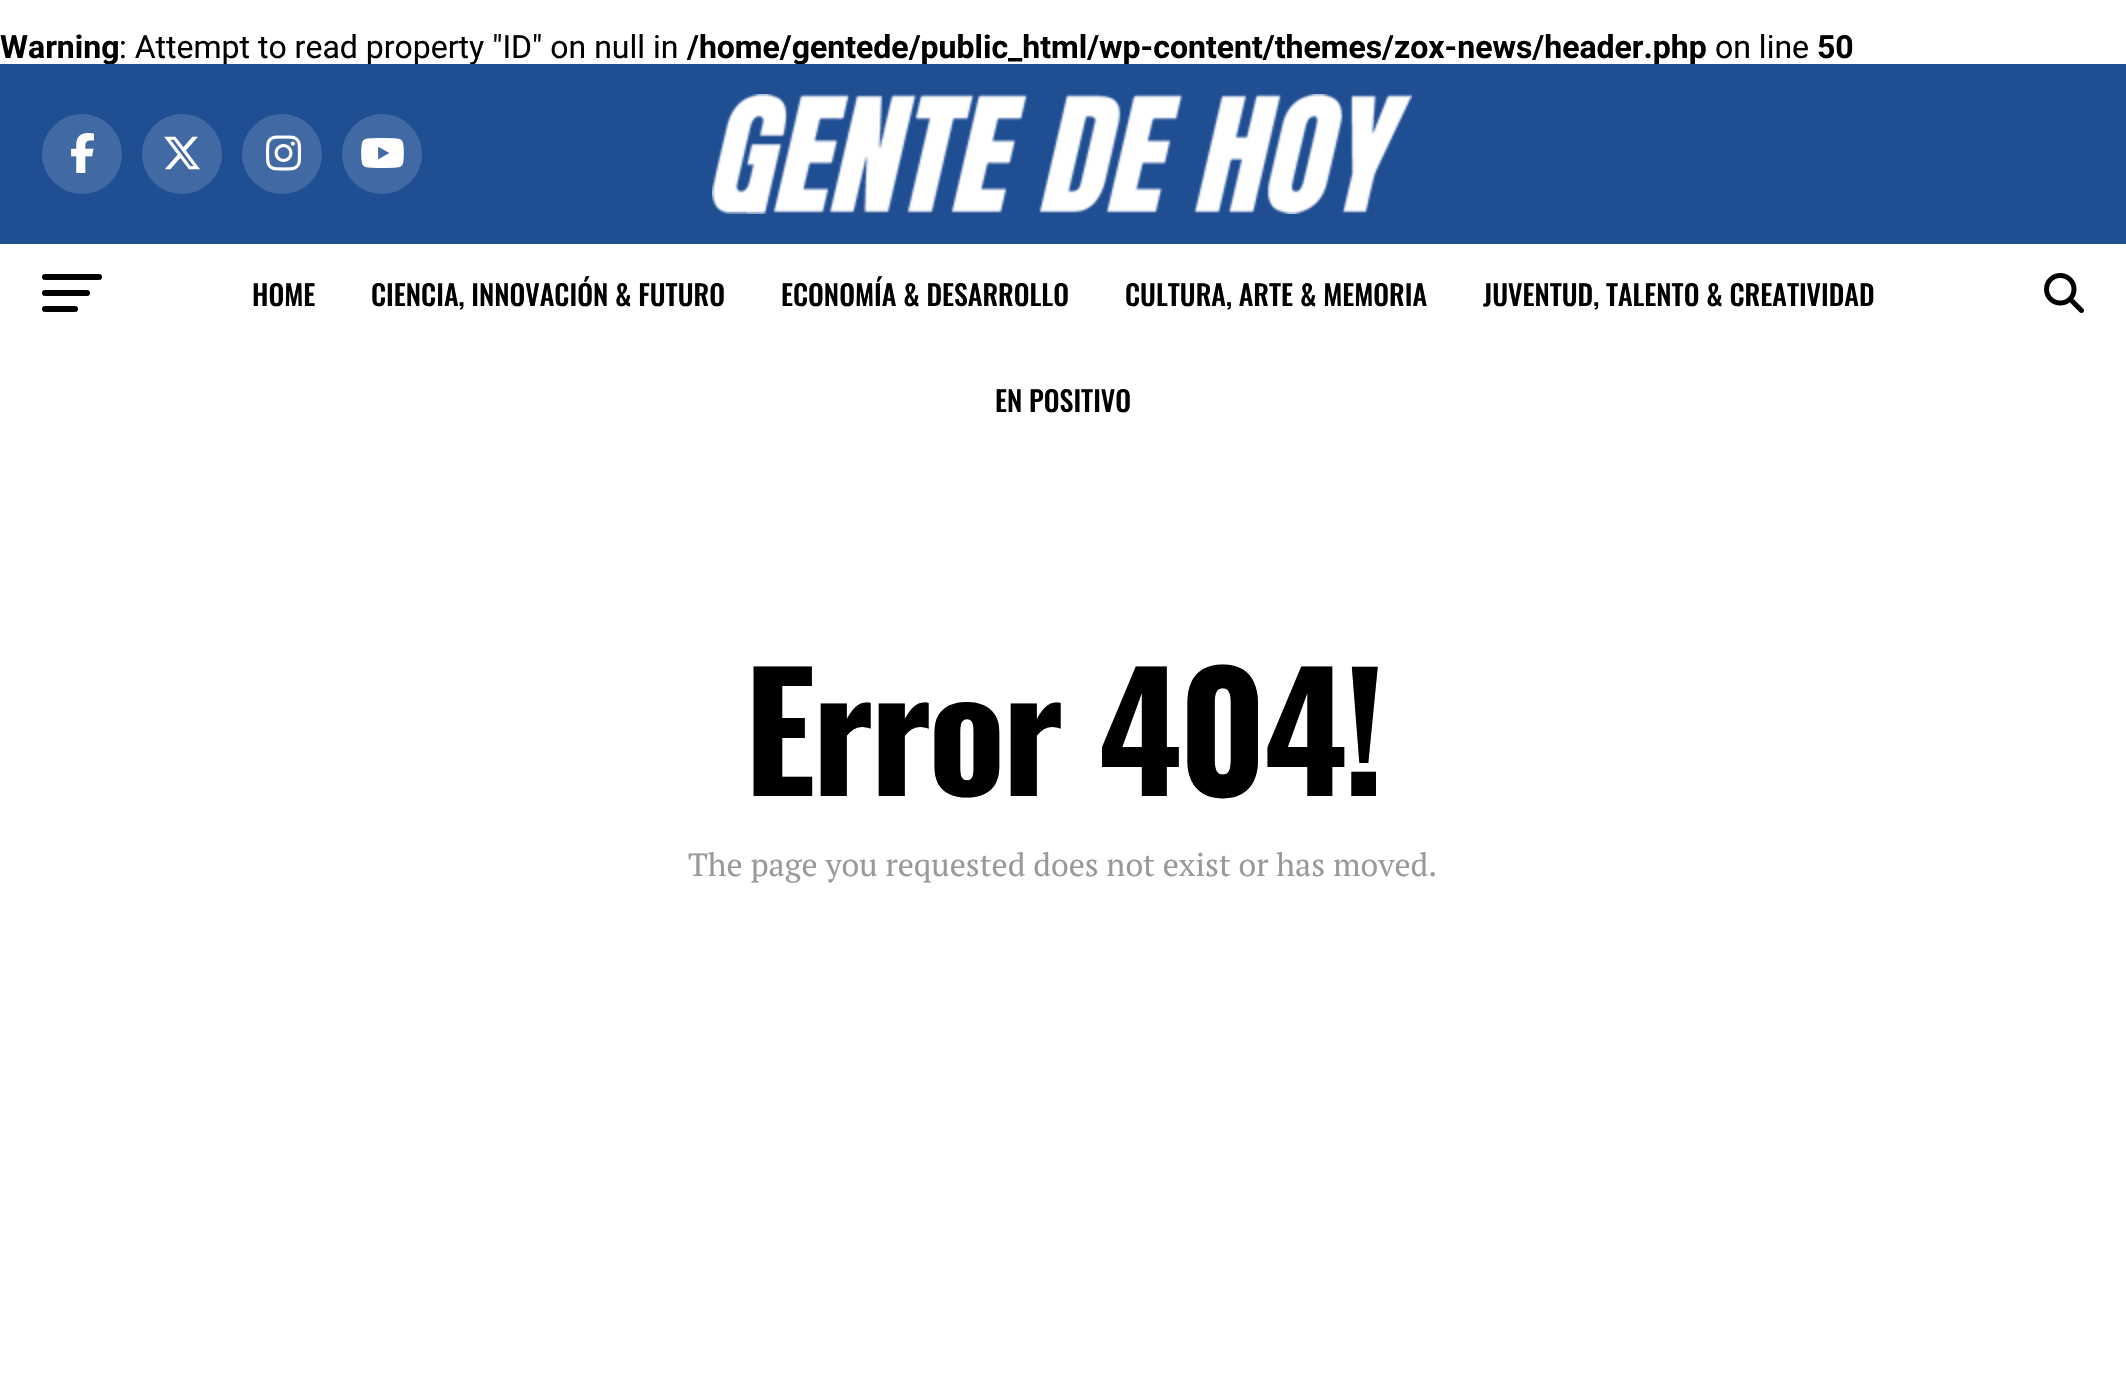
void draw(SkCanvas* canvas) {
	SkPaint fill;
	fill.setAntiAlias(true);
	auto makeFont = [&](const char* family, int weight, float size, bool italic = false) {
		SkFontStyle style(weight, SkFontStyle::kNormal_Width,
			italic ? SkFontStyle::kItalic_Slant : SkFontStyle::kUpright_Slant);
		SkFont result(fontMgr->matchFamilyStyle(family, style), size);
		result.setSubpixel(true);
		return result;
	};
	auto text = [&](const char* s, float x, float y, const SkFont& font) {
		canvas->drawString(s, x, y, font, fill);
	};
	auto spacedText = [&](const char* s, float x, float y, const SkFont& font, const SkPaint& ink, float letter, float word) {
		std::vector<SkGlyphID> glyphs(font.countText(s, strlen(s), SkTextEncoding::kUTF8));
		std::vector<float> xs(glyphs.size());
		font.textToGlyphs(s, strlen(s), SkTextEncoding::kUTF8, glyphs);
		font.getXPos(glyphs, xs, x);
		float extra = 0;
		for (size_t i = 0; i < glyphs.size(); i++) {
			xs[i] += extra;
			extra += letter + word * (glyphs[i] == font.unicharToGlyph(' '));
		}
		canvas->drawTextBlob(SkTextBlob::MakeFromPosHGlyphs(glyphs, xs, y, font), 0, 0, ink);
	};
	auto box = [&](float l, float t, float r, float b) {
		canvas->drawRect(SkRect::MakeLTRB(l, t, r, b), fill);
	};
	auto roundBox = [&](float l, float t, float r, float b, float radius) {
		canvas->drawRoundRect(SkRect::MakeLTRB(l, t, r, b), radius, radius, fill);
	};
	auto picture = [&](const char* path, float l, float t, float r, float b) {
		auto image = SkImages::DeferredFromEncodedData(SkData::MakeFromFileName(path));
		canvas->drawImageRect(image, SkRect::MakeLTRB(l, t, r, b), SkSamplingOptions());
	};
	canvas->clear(0xFFFFFFFF);
	fill.setColor(0xFF000000);
	roundBox(42, 274, 102, 280, 3);
	roundBox(42, 290, 90, 296, 3);
	roundBox(42, 306, 78, 312, 3);
	picture("image5.png", 2044, 273, 2084, 313);
	auto font1 = makeFont("Roboto", 700, 32);
	text("Warning", 0, 58, font1);
	auto font2 = makeFont("Roboto", 400, 32);
	text(": Attempt to read property \"ID\" on null in", 119, 58, font2);
	text("/home/gentede/public_html/wp-content/themes/zox-news/header.php", 687, 58, font1);
	text("on line", 1715, 58, font2);
	text("50", 1817, 58, font1);
	fill.setColor(0xFF204E93);
	box(0, 64, 2126, 244);
	fill.setColor(0xFF4169A3);
	canvas->drawCircle(82, 154, 40, fill);
	picture("image0.png", 71, 133, 94, 173);
	canvas->drawCircle(182, 154, 40, fill);
	picture("image1.png", 164, 136, 200, 170);
	canvas->drawCircle(282, 154, 40, fill);
	picture("image2.png", 266, 135, 301, 171);
	canvas->drawCircle(382, 154, 40, fill);
	picture("image3.png", 361, 138, 404, 168);
	picture("image4.png", 712, 94, 1412, 214);
	auto font3 = makeFont("Oswald", 500, 28);
	fill.setColor(0xFF000000);
	text("HOME", 252, 306, font3);
	text("CIENCIA, INNOVACIÓN & FUTURO", 371, 306, font3);
	text("ECONOMÍA & DESARROLLO", 781, 306, font3);
	text("CULTURA, ARTE & MEMORIA", 1125, 306, font3);
	text("JUVENTUD, TALENTO & CREATIVIDAD", 1483, 306, font3);
	text("EN POSITIVO", 995, 412, font3);
	auto font4 = makeFont("Oswald", 700, 160);
	spacedText("Error 404!", 744, 796, font4, fill, -3.25f, 0);
	auto font5 = makeFont("PT Serif", 400, 32);
	fill.setColor(0xFF999999);
	text("The page you requested does not exist or has moved.", 688, 876, font5);
}
